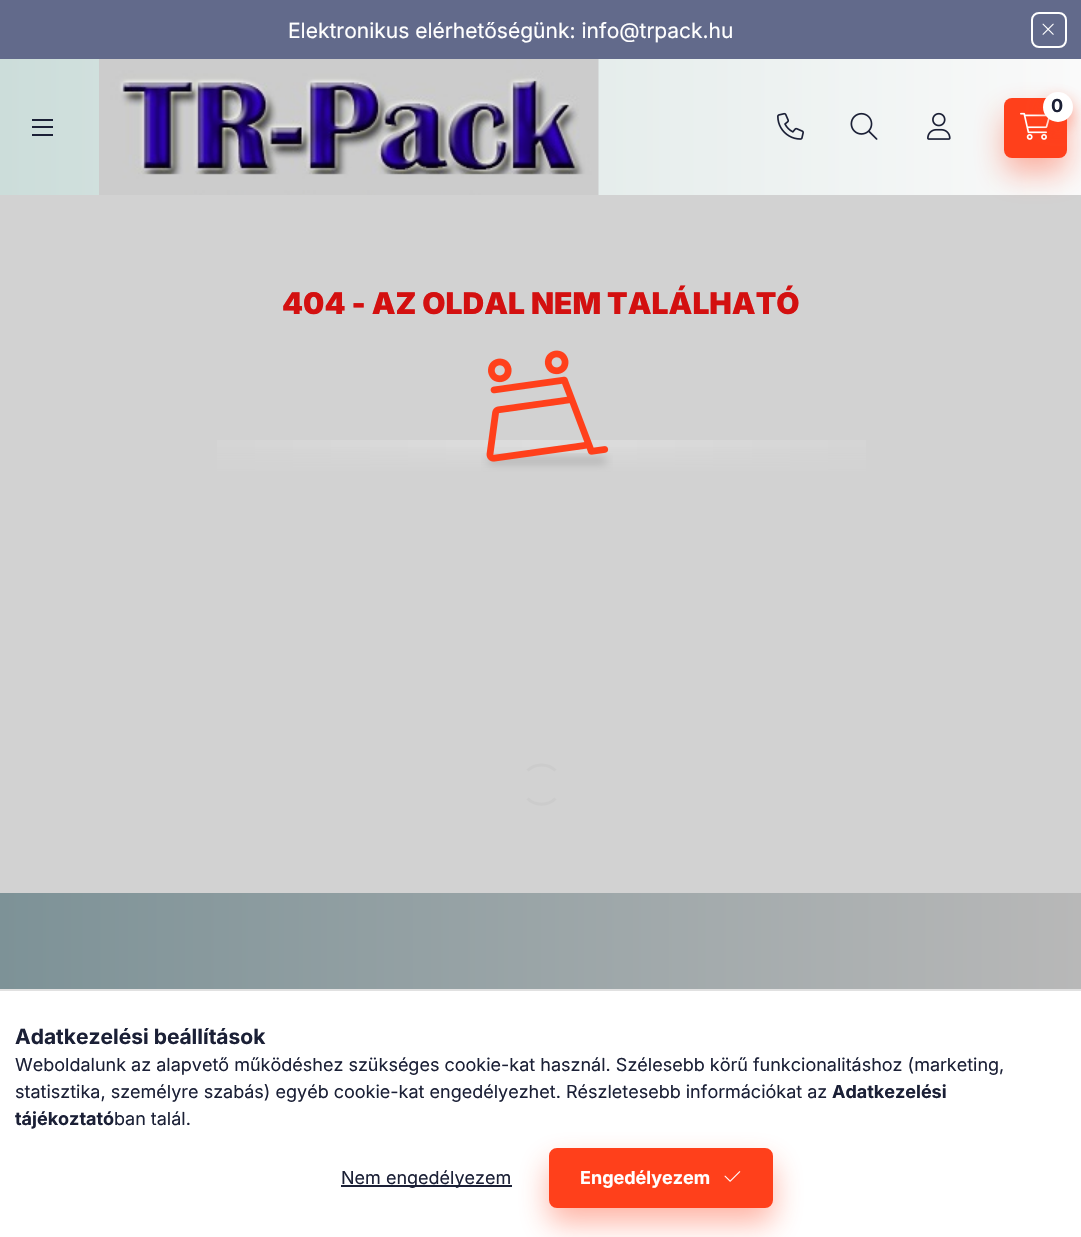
void draw(SkCanvas* canvas) {
	SkPaint fill;
	fill.setAntiAlias(true);
	auto makeFont = [&](const char* family, int weight, float size, bool italic = false) {
		SkFontStyle style(weight, SkFontStyle::kNormal_Width,
			italic ? SkFontStyle::kItalic_Slant : SkFontStyle::kUpright_Slant);
		SkFont result(fontMgr->matchFamilyStyle(family, style), size);
		result.setSubpixel(true);
		return result;
	};
	auto text = [&](const char* s, float x, float y, const SkFont& font) {
		canvas->drawString(s, x, y, font, fill);
	};
	auto box = [&](float l, float t, float r, float b) {
		canvas->drawRect(SkRect::MakeLTRB(l, t, r, b), fill);
	};
	auto roundBox = [&](float l, float t, float r, float b, float radius) {
		canvas->drawRoundRect(SkRect::MakeLTRB(l, t, r, b), radius, radius, fill);
	};
	auto picture = [&](const char* path, float l, float t, float r, float b) {
		auto image = SkImages::DeferredFromEncodedData(SkData::MakeFromFileName(path));
		canvas->drawImageRect(image, SkRect::MakeLTRB(l, t, r, b), SkSamplingOptions());
	};
	canvas->clear(0xFFD2D2D2);
	fill.setColor(0xFF626A8B);
	box(0, 0, 1081, 59);
	fill.setStyle(SkPaint::kStroke_Style);
	fill.setStrokeWidth(2);
	fill.setColor(0xFFFFFFFF);
	canvas->drawRoundRect(SkRect::MakeLTRB(1032, 13, 1066, 47), 7, 7, fill);
	picture("image0.png", 1042, 23, 1054, 35);
	fill.setStyle(SkPaint::kFill_Style);
	{
		const SkColor colors[] = {0xFFCCDDDA, 0xFFFAFAFA};
		const float stops[] = {0, 1};
		const SkPoint ends[] = {{0, 619}, {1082, 619}};
		fill.setShader(SkGradientShader::MakeLinear(ends, colors, stops, 2, SkTileMode::kClamp));
		fill.setAlpha(255);
	}
	box(0, 59, 1081, 195);
	fill.setShader(nullptr);
	fill.setColor(0xFF1B2036);
	box(32, 119, 53, 121);
	box(32, 126, 53, 128);
	box(32, 134, 53, 136);
	picture("image1.png", 99, 59, 599, 195);
	picture("image2.png", 777, 112, 804, 140);
	fill.setColor(0x66FF401B);
	fill.setMaskFilter(SkMaskFilter::MakeBlur(kNormal_SkBlurStyle, 15));
	canvas->drawRoundRect(SkRect::MakeLTRB(1004, 113, 1067, 173), 8, 8, fill);
	fill.setMaskFilter(nullptr);
	fill.setColor(0xFFFF401B);
	roundBox(1004, 98, 1067, 158, 8);
	picture("image3.png", 1020, 112, 1050, 140);
	fill.setColor(0x66FF401B);
	fill.setMaskFilter(SkMaskFilter::MakeBlur(kNormal_SkBlurStyle, 7.5f));
	canvas->drawRoundRect(SkRect::MakeLTRB(1043, 99, 1073, 129), 15, 15, fill);
	fill.setMaskFilter(nullptr);
	fill.setColor(0xFFFFFFFF);
	canvas->drawCircle(1058, 107, 15, fill);
	picture("image4.png", 850, 112, 878, 140);
	picture("image5.png", 927, 112, 951, 140);
	{
		const SkColor colors[] = {0xFFD2D2D2, 0xFFDDDDDD, 0xFFD2D2D2};
		const float stops[] = {0.1f, 0.5f, 0.9f};
		const SkPoint ends[] = {{16, 455}, {1067, 455}};
		fill.setShader(SkGradientShader::MakeLinear(ends, colors, stops, 3, SkTileMode::kClamp));
		fill.setAlpha(255);
	}
	box(217, 440, 866, 471);
	{
		const SkColor colors[] = {0xFFD2D2D2, 0x00D2D2D2};
		const float stops[] = {0, 1};
		const SkPoint ends[] = {{542, 471}, {542, 440}};
		fill.setShader(SkGradientShader::MakeLinear(ends, colors, stops, 2, SkTileMode::kClamp));
		fill.setAlpha(255);
	}
	box(217, 447, 866, 471);
	canvas->save();
	canvas->clipRect(SkRect::MakeLTRB(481, 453, 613, 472));
	fill.setShader(nullptr);
	fill.setColor(0xFF808080);
	fill.setMaskFilter(SkMaskFilter::MakeBlur(kNormal_SkBlurStyle, 5));
	canvas->drawRect(SkRect::MakeLTRB(488, 459, 606, 462), fill);
	fill.setMaskFilter(nullptr);
	canvas->restore();
	picture("image6.png", 486, 350, 609, 462);
	fill.setStyle(SkPaint::kStroke_Style);
	fill.setStrokeWidth(3);
	fill.setColor(0xFFCCCCCC);
	canvas->drawPath(SkPathBuilder().moveTo(527.5f, 770.5f).cubicTo(535, 763, 548, 763, 555.5f, 770.5f).moveTo(555.5f, 798.5f).cubicTo(548, 806, 535, 806, 527.5f, 798.5f).detach(), fill);
	fill.setStyle(SkPaint::kFill_Style);
	{
		const SkColor colors[] = {0xFF7D9297, 0xFFB8B8B8};
		const float stops[] = {0, 1};
		const SkPoint ends[] = {{0, 619}, {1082, 619}};
		fill.setShader(SkGradientShader::MakeLinear(ends, colors, stops, 2, SkTileMode::kClamp));
		fill.setAlpha(255);
	}
	box(0, 893, 1081, 989);
	fill.setShader(nullptr);
	fill.setColor(0xFFFFFFFF);
	box(0, 991, 1081, 1237);
	fill.setColor(0xFFE1E1E1);
	box(0, 989, 1081, 991);
	fill.setColor(0xFF1B2036);
	box(341, 1185, 512, 1187);
	fill.setColor(0x66FF401B);
	fill.setMaskFilter(SkMaskFilter::MakeBlur(kNormal_SkBlurStyle, 15));
	canvas->drawRoundRect(SkRect::MakeLTRB(549, 1163, 773, 1223), 8, 8, fill);
	fill.setMaskFilter(nullptr);
	fill.setColor(0xFFFF401B);
	canvas->drawRoundRect(SkRect::MakeLTRB(550, 1149, 772, 1207), 7, 7, fill);
	fill.setStyle(SkPaint::kStroke_Style);
	fill.setStrokeWidth(2);
	canvas->drawRoundRect(SkRect::MakeLTRB(550, 1149, 772, 1207), 7, 7, fill);
	picture("image7.png", 724, 1171, 741, 1182);
	auto font1 = makeFont("Inter", 400, 21);
	fill.setStyle(SkPaint::kFill_Style);
	fill.setColor(0xFFFFFFFF);
	text("Elektronikus elérhetőségünk: info@trpack.hu", 288, 38, font1);
	auto font2 = makeFont("Inter", 700, 18);
	fill.setColor(0xFF1B2036);
	text("0", 1051, 112, font2);
	auto font3 = makeFont("Inter", 900, 30);
	fill.setColor(0xFFD31010);
	text("404 - AZ OLDAL NEM TALÁLHATÓ", 282, 314, font3);
	auto font4 = makeFont("Inter", 700, 21);
	fill.setColor(0xFF1B2036);
	text("Adatkezelési beállítások", 15, 1044, font4);
	auto font5 = makeFont("Inter", 400, 18);
	text("Weboldalunk az alapvető működéshez szükséges cookie-kat használ. Szélesebb körű funkcionalitáshoz (marketing,", 15, 1071, font5);
	text("statisztika, személyre szabás) egyéb cookie-kat engedélyezhet. Részletesebb információkat az", 15, 1098, font5);
	text("Adatkezelési", 832, 1098, font2);
	text("tájékoztató", 15, 1125, font2);
	text("ban talál.", 114, 1125, font5);
	text("Nem engedélyezem", 341, 1184, font5);
	fill.setColor(0xFFFFFFFF);
	text("Engedélyezem", 580, 1184, font2);
}
